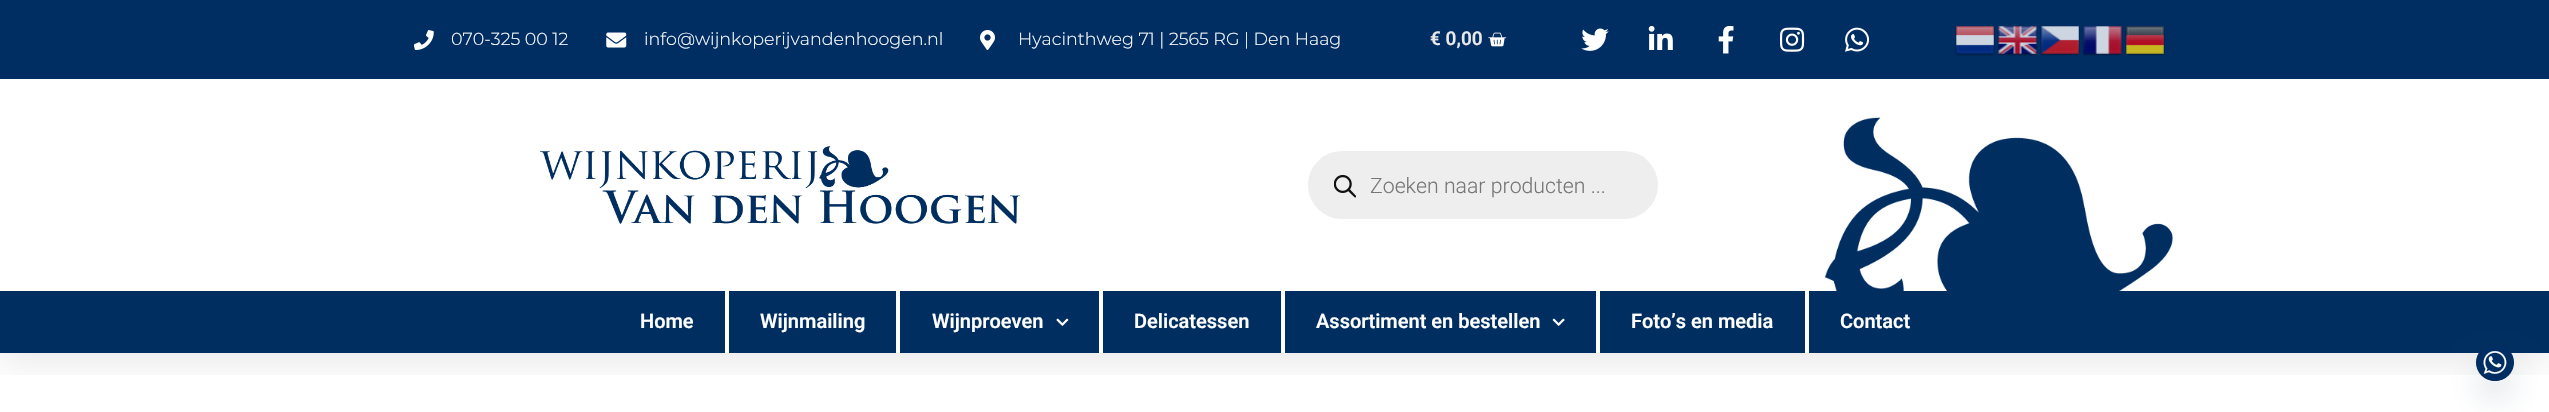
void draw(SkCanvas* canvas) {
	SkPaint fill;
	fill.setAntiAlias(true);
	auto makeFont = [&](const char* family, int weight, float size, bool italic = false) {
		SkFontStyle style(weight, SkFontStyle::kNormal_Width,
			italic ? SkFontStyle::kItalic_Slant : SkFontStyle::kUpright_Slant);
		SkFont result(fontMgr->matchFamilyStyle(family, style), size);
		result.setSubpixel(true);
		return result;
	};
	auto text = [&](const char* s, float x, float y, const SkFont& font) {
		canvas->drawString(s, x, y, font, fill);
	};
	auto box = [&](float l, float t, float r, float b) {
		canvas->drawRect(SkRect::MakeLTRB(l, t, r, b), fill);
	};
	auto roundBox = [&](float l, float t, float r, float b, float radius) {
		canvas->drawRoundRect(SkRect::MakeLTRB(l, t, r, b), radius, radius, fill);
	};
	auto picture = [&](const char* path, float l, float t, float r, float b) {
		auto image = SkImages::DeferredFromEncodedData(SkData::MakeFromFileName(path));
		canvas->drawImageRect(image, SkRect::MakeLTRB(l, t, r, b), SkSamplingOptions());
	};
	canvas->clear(0xFFFFFFFF);
	canvas->save();
	canvas->clipRect(SkRect::MakeLTRB(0, 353, 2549, 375));
	fill.setColor(0x1A000000);
	fill.setMaskFilter(SkMaskFilter::MakeBlur(kNormal_SkBlurStyle, 19));
	canvas->drawRect(SkRect::MakeLTRB(0, 6, 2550, 359), fill);
	fill.setMaskFilter(nullptr);
	canvas->restore();
	fill.setColor(0xFF002D62);
	box(0, 0, 2549, 79);
	picture("image0.png", 414, 30, 434, 50);
	picture("image1.png", 606, 32, 627, 48);
	picture("image2.png", 980, 30, 995, 50);
	picture("image3.png", 1488, 32, 1507, 47);
	picture("image4.png", 1581, 28, 1609, 51);
	picture("image5.png", 1648, 26, 1673, 50);
	picture("image6.png", 1718, 26, 1734, 54);
	picture("image7.png", 1780, 27, 1805, 52);
	picture("image8.png", 1845, 27, 1870, 52);
	picture("image9.png", 1955, 26, 1995, 56);
	picture("image10.png", 1997, 26, 2038, 56);
	picture("image11.png", 2040, 26, 2080, 56);
	picture("image12.png", 2082, 26, 2123, 56);
	picture("image13.png", 2125, 26, 2165, 56);
	picture("image14.png", 540, 146, 1020, 224);
	fill.setColor(0xFFEEEEEE);
	roundBox(1308, 151, 1658, 219, 34);
	picture("image15.png", 1334, 175, 1356, 198);
	picture("image16.png", 1825, 117, 2173, 291);
	fill.setColor(0xFF002E60);
	box(0, 291, 2549, 353);
	fill.setColor(0xFFFFFFFF);
	box(725, 291, 729, 353);
	box(896, 291, 900, 353);
	picture("image17.png", 1056, 318, 1069, 326);
	box(1099, 291, 1103, 353);
	box(1281, 291, 1285, 353);
	picture("image18.png", 1552, 318, 1565, 326);
	box(1596, 291, 1600, 353);
	box(1805, 291, 1809, 353);
	fill.setColor(0x2949687E);
	fill.setMaskFilter(SkMaskFilter::MakeBlur(kNormal_SkBlurStyle, 15));
	canvas->drawRoundRect(SkRect::MakeLTRB(2476, 364, 2514, 401), 18.5f, 18.5f, fill);
	fill.setMaskFilter(nullptr);
	fill.setColor(0xFF002D62);
	roundBox(2476, 344, 2514, 381, 18.5f);
	picture("image19.png", 2476, 351, 2514, 381);
	auto font1 = makeFont("Montserrat", 300, 17.5f);
	fill.setColor(0xFFFFFFFF);
	text("070-325 00 12", 451, 45, font1);
	text("info@wijnkoperijvandenhoogen.nl", 644, 45, font1);
	text("Hyacinthweg 71 | 2565 RG | Den Haag", 1018, 45, font1);
	auto font2 = makeFont("Roboto", 600, 19);
	fill.setColor(0xFFE9E9E9);
	text("€ 0,00", 1430, 45, font2);
	auto font3 = makeFont("Roboto", 300, 21.25f);
	fill.setColor(0xFF777777);
	text("Zoeken naar producten ...", 1370, 193, font3);
	auto font4 = makeFont("Roboto", 600, 20);
	fill.setColor(0xFFFFFFFF);
	text("Home", 640, 328, font4);
	text("Wijnmailing", 760, 328, font4);
	text("Wijnproeven", 932, 328, font4);
	text("Delicatessen", 1134, 328, font4);
	text("Assortiment en bestellen", 1316, 328, font4);
	text("Foto’s en media", 1631, 328, font4);
	text("Contact", 1840, 328, font4);
}
